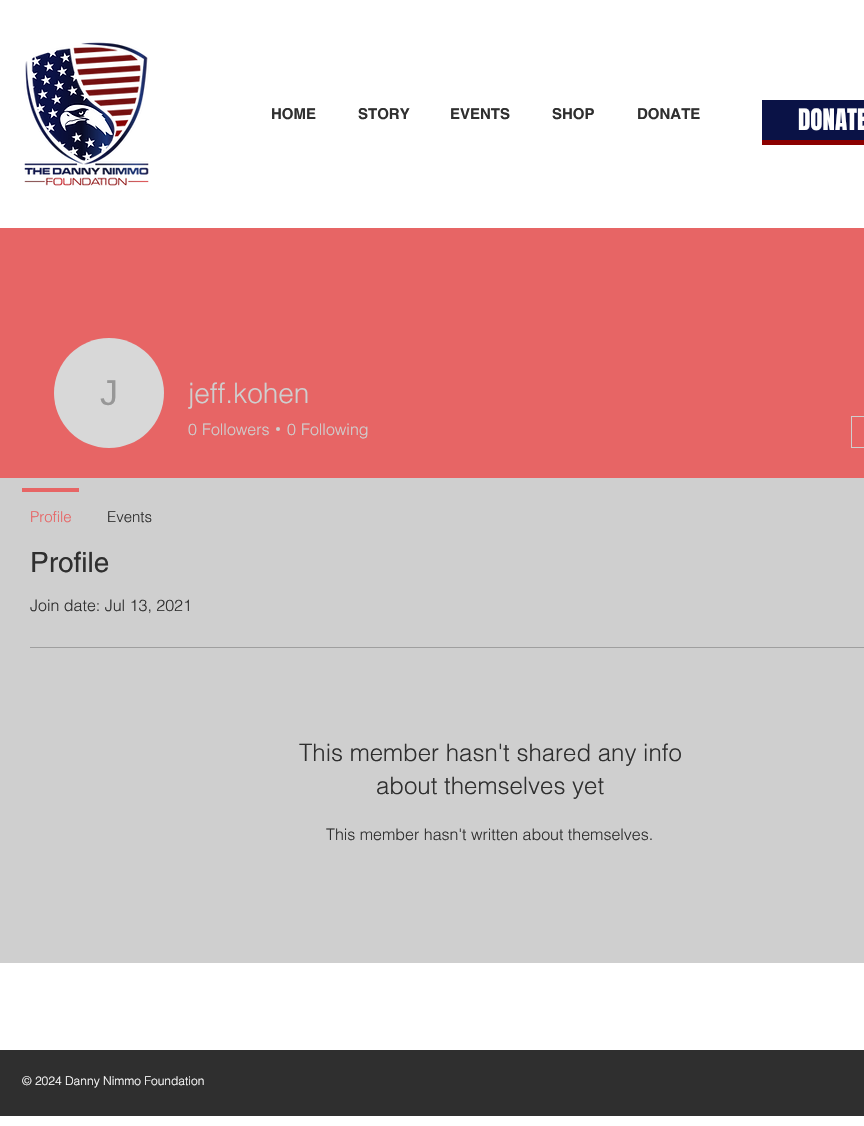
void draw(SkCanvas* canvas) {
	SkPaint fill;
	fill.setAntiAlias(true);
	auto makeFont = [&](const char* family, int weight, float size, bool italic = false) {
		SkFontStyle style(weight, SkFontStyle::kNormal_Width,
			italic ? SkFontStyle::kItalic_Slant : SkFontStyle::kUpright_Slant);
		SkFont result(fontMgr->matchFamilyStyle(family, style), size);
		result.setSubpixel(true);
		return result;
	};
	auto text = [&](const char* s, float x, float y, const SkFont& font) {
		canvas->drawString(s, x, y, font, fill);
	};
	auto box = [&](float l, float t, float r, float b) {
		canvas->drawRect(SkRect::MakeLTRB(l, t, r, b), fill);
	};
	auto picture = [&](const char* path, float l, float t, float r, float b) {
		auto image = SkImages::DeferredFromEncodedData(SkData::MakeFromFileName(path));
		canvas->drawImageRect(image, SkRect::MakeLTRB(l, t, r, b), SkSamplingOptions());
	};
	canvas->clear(0xFFFFFFFF);
	picture("image0.png", 24, 42, 149, 186);
	fill.setColor(0xFF8B0000);
	box(762, 140, 864, 145);
	fill.setColor(0xFF0A1246);
	box(762, 100, 864, 140);
	fill.setColor(0xFFE76565);
	box(0, 228, 864, 478);
	fill.setColor(0xFFD8D8D8);
	canvas->drawCircle(109, 393, 55, fill);
	fill.setColor(0xFFCFCFCF);
	canvas->drawCircle(278, 429, 2, fill);
	fill.setStyle(SkPaint::kStroke_Style);
	fill.setStrokeWidth(1);
	canvas->drawRect(SkRect::MakeLTRB(851.5f, 416.5f, 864.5f, 447.5f), fill);
	fill.setStyle(SkPaint::kFill_Style);
	box(0, 478, 864, 963);
	fill.setColor(0xFFE76565);
	box(22, 488, 79, 492);
	fill.setColor(0xFF9F9F9F);
	box(30, 647, 864, 648);
	fill.setColor(0xFF2F2F2F);
	box(0, 1050, 864, 1116);
	auto font1 = makeFont("helvetica", 700, 15);
	text("HOME", 271, 119, font1);
	text("STORY", 358, 119, font1);
	text("EVENTS", 450, 119, font1);
	text("SHOP", 552, 119, font1);
	text("DONATE", 637, 119, font1);
	auto font2 = makeFont("Anton", 400, 25);
	fill.setColor(0xFFFFFFFF);
	text("DONATE", 798, 130, font2);
	auto font3 = makeFont("Liberation Sans", 400, 36);
	fill.setColor(0xFF979797);
	text("J", 100, 405, font3);
	auto font4 = makeFont("helvetica", 300, 28);
	fill.setColor(0xFFCFCFCF);
	text("jeff.kohen", 188, 403, font4);
	auto font5 = makeFont("helvetica", 300, 16);
	text("0", 188, 435, font5);
	text("Followers", 202, 435, font5);
	text("0", 287, 435, font5);
	text("Following", 301, 435, font5);
	auto font6 = makeFont("helvetica", 300, 15);
	fill.setColor(0xFFE76565);
	text("Profile", 30, 522, font6);
	fill.setColor(0xFF2F2F2F);
	text("Events", 107, 522, font6);
	auto font7 = makeFont("helvetica", 400, 28);
	text("Profile", 30, 572, font7);
	text("Join date: Jul 13, 2021", 30, 611, font5);
	auto font8 = makeFont("helvetica", 300, 24);
	text("This member hasn't shared any info", 299, 761, font8);
	text("about themselves yet", 376, 794, font8);
	text("This member hasn't written about themselves.", 326, 840, font5);
	auto font9 = makeFont("helvetica", 300, 12);
	fill.setColor(0xFFFFFFFF);
	text("© 2024 Danny Nimmo Foundation", 22, 1085, font9);
}
